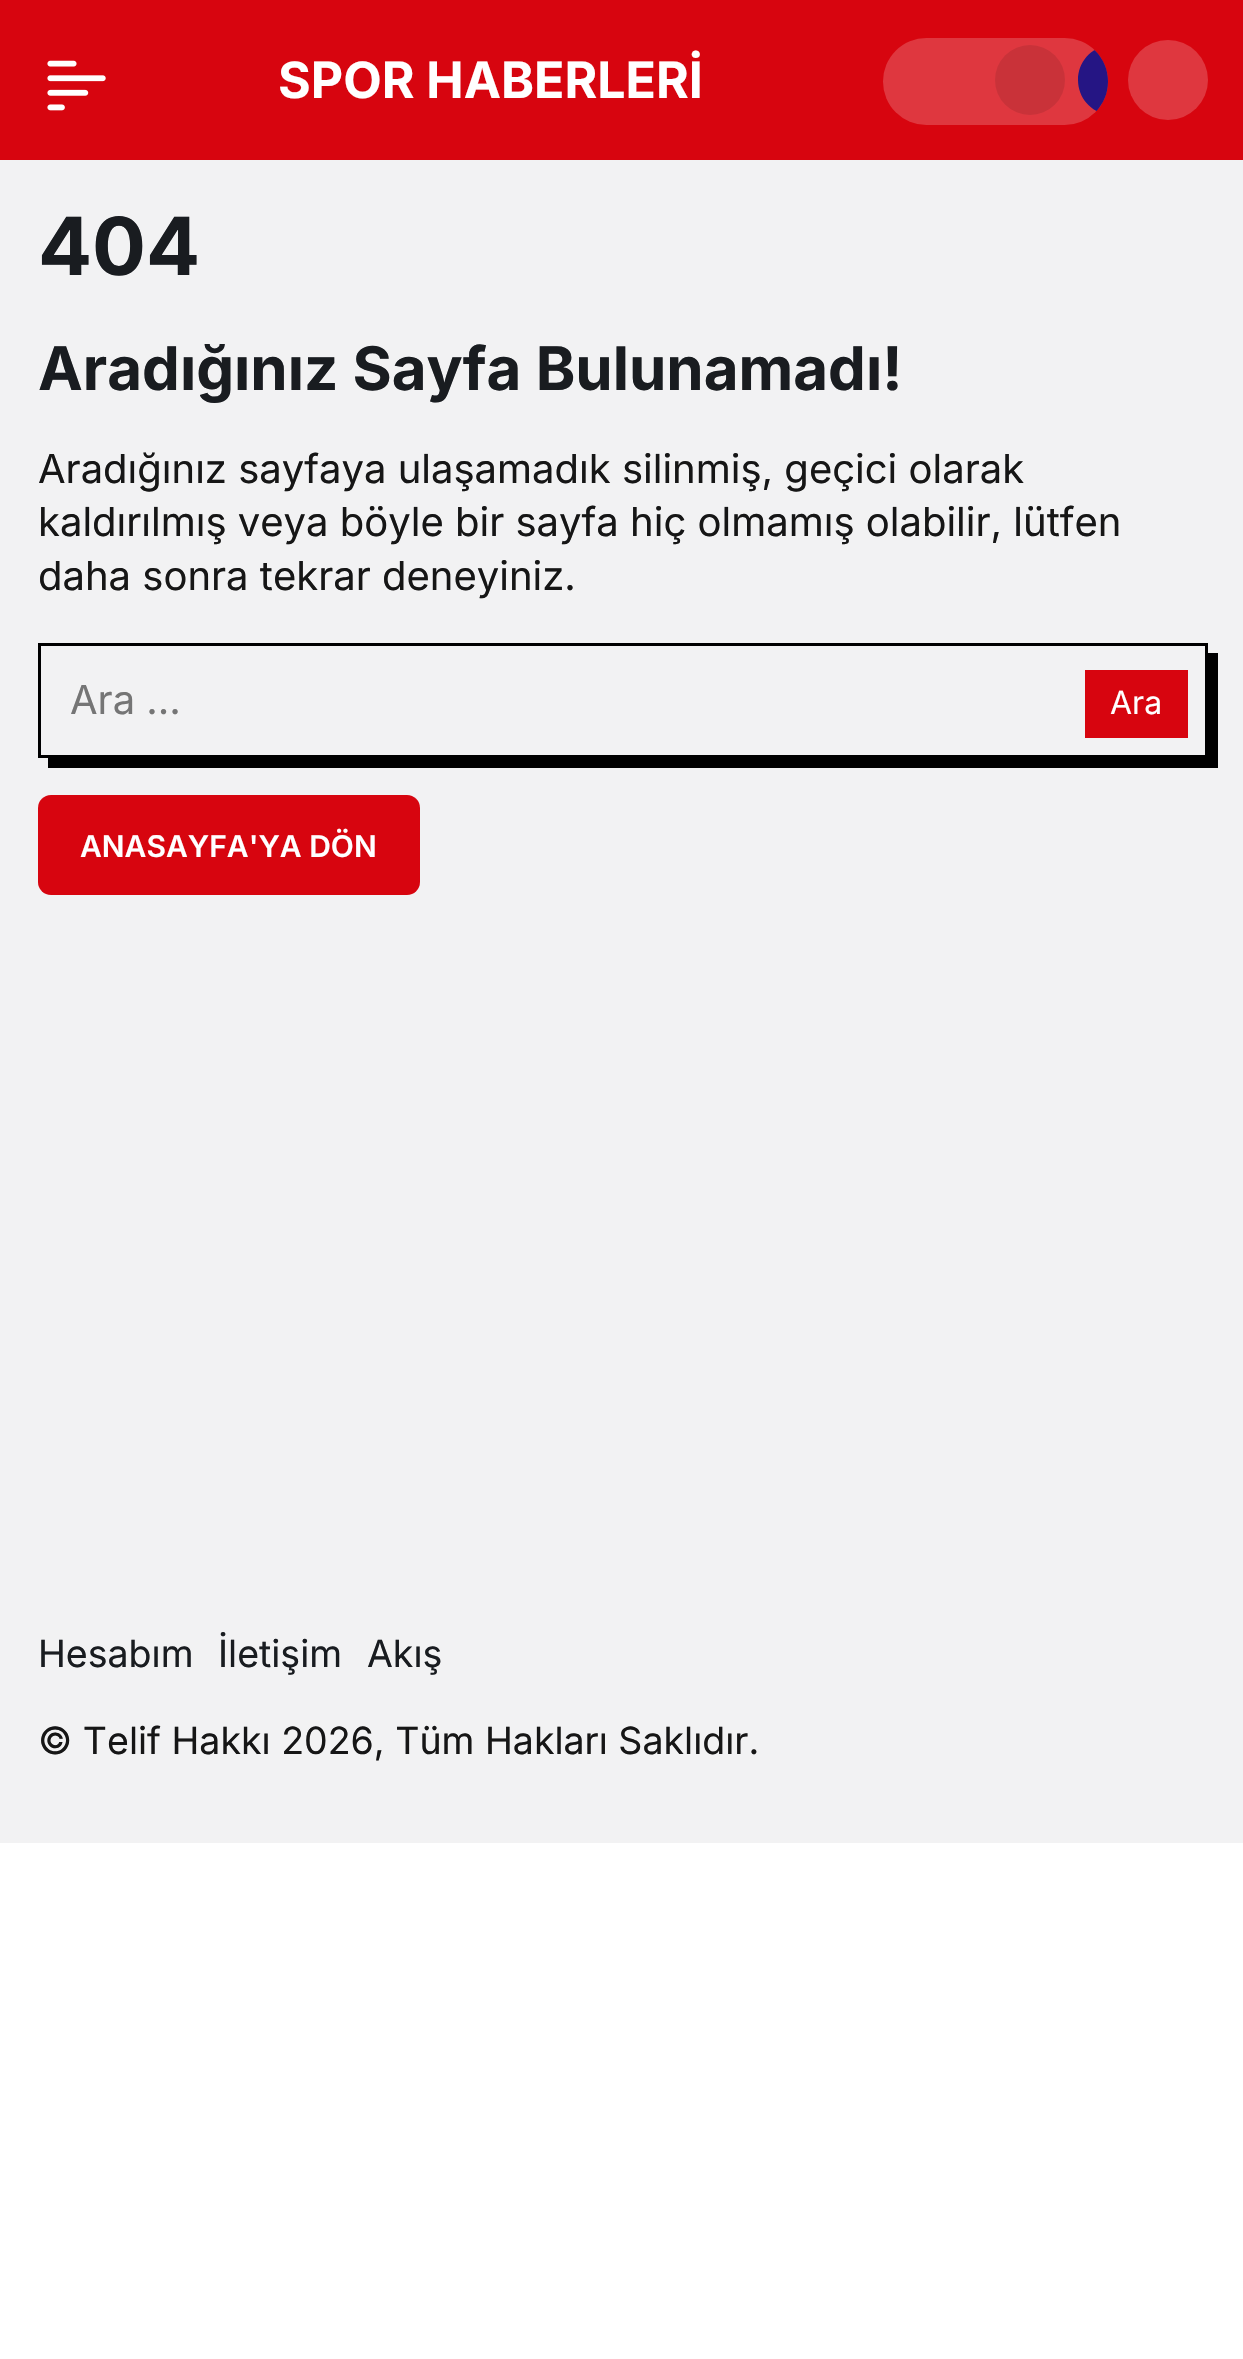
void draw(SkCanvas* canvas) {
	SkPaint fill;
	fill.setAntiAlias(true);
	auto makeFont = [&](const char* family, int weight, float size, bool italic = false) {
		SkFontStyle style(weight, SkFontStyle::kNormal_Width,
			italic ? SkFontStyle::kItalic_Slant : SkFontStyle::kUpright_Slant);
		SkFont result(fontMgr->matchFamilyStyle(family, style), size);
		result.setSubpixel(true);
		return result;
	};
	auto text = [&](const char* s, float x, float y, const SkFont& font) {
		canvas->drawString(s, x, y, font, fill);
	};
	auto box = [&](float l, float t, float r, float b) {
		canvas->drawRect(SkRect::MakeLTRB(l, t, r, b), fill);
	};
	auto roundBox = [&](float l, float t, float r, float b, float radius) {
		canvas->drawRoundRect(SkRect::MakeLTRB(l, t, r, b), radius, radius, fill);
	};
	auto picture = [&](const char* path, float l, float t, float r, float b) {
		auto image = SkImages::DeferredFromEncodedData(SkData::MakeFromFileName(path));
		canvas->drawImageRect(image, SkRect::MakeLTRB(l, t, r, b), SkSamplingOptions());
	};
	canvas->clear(0xFFFFFFFF);
	fill.setColor(0xFFF2F2F3);
	box(0, 160, 1243, 1843);
	fill.setColor(0xFFD7050F);
	box(0, 0, 1243, 160);
	picture("image0.png", 47, 60, 106, 111);
	fill.setColor(0xFFDF373F);
	roundBox(883, 38, 1108, 125, 43.5f);
	fill.setColor(0xFFC93239);
	canvas->drawCircle(1030, 80, 35, fill);
	canvas->save();
	canvas->clipPath(SkPathBuilder().moveTo(926.5f, 38).lineTo(1064.5f, 38).cubicTo(1088.5f, 38, 1108, 57.5f, 1108, 81.5f).cubicTo(1108, 105.5f, 1088.5f, 125, 1064.5f, 125).lineTo(926.5f, 125).cubicTo(902.5f, 125, 883, 105.5f, 883, 81.5f).cubicTo(883, 57.5f, 902.5f, 38, 926.5f, 38).close().detach(), true);
	fill.setColor(0xFF251584);
	canvas->drawPath(SkPathBuilder().moveTo(1113, 45).lineTo(1108, 45).lineTo(1108, 115).lineTo(1113, 115).cubicTo(1093.5f, 115, 1078, 99.5f, 1078, 80).cubicTo(1078, 60.5f, 1093.5f, 45, 1113, 45).close().detach(), fill);
	canvas->restore();
	fill.setColor(0xFFDF373F);
	canvas->drawCircle(1168, 80, 40, fill);
	fill.setColor(0xFF000000);
	canvas->drawPath(SkPathBuilder().moveTo(48, 758).lineTo(48, 768).lineTo(1218, 768).lineTo(1218, 653).lineTo(1208, 653).lineTo(1208, 758).close().detach(), fill);
	fill.setStyle(SkPaint::kStroke_Style);
	fill.setStrokeWidth(3);
	canvas->drawRect(SkRect::MakeLTRB(39.5f, 644.5f, 1206.5f, 756.5f), fill);
	fill.setStyle(SkPaint::kFill_Style);
	fill.setColor(0xFFD7050F);
	box(1085, 670, 1188, 738);
	roundBox(38, 795, 420, 895, 13);
	auto font1 = makeFont("Inter", 700, 50);
	fill.setColor(0xFFFFFFFF);
	text("SPOR HABERLERİ", 278, 98, font1);
	auto font2 = makeFont("Inter", 700, 80);
	fill.setColor(0xFF191C20);
	text("404", 38, 275, font2);
	auto font3 = makeFont("Inter", 700, 60);
	text("Aradığınız Sayfa Bulunamadı!", 38, 390, font3);
	auto font4 = makeFont("Inter", 400, 40);
	fill.setColor(0xFF161616);
	text("Aradığınız sayfaya ulaşamadık silinmiş, geçici olarak", 38, 483, font4);
	text("kaldırılmış veya böyle bir sayfa hiç olmamış olabilir, lütfen", 38, 536, font4);
	text("daha sonra tekrar deneyiniz.", 38, 590, font4);
	fill.setColor(0xFF757575);
	text("Ara …", 70, 714, font4);
	auto font5 = makeFont("Inter", 400, 32);
	fill.setColor(0xFFFFFFFF);
	text("Ara", 1110, 714, font5);
	auto font6 = makeFont("Inter", 600, 30);
	text("ANASAYFA'YA DÖN", 80, 857, font6);
	auto font7 = makeFont("Inter", 400, 37.5f);
	fill.setColor(0xFF191C20);
	text("Hesabım", 38, 1667, font7);
	text("İletişim", 218, 1667, font7);
	text("Akış", 367, 1667, font7);
	fill.setColor(0xFF161616);
	text("© Telif Hakkı 2026, Tüm Hakları Saklıdır.", 38, 1754, font7);
}
